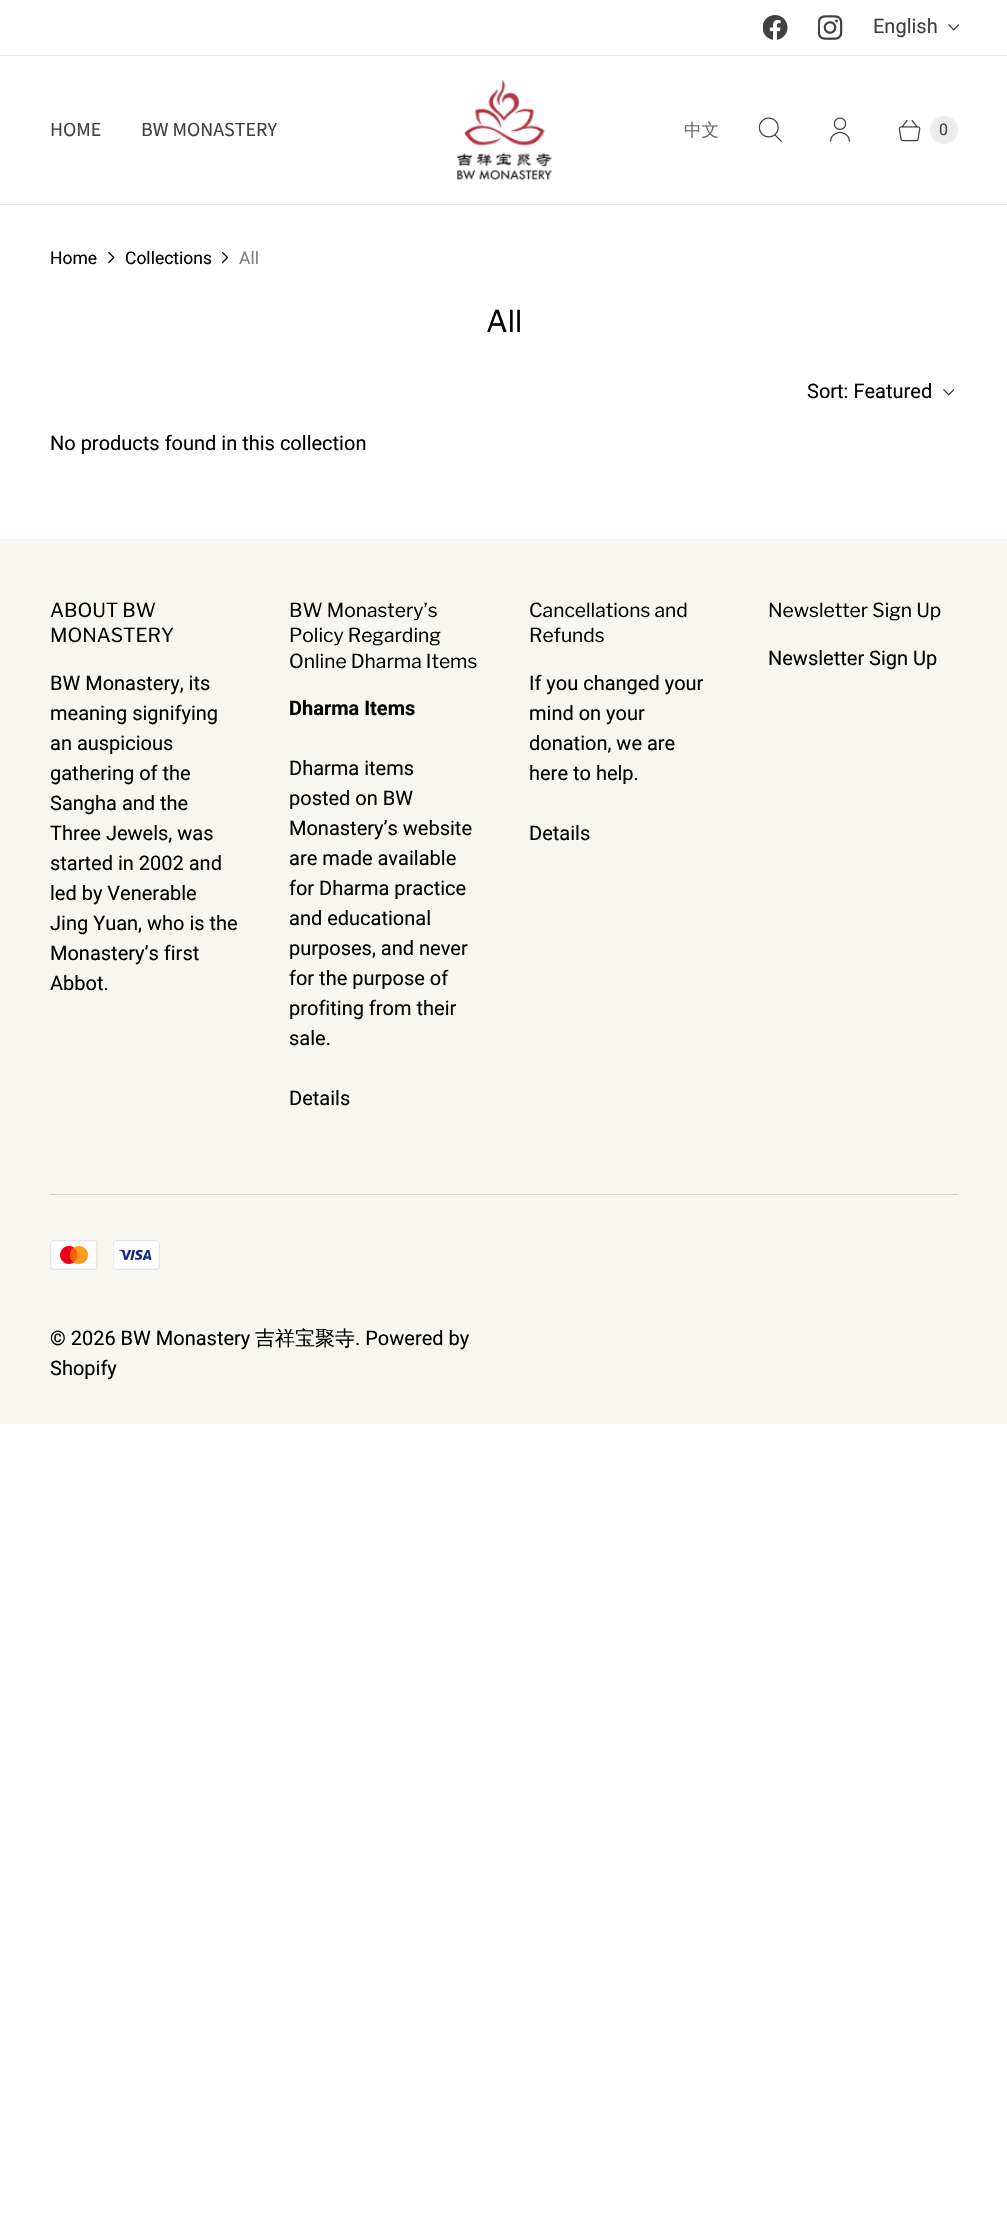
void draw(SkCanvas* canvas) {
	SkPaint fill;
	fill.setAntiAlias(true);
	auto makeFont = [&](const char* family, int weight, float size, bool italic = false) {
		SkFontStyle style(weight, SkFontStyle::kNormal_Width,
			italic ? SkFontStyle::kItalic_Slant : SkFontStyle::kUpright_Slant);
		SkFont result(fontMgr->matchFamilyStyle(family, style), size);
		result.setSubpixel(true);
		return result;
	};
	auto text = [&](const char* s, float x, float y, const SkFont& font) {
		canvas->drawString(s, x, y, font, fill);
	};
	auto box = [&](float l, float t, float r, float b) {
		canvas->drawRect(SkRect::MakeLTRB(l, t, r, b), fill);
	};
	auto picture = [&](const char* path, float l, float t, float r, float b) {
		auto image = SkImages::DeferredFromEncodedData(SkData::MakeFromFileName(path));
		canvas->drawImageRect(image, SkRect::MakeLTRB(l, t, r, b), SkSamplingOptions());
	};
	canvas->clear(0xFFFFFFFF);
	fill.setColor(0xFFE7E7E7);
	box(0, 55, 1007, 56);
	picture("image0.png", 763, 15, 788, 40);
	picture("image1.png", 818, 15, 843, 40);
	picture("image2.png", 948, 24, 959, 31);
	box(0, 204, 1007, 205);
	picture("image3.png", 457, 79, 552, 181);
	picture("image4.png", 758, 117, 782, 142);
	picture("image5.png", 830, 117, 850, 142);
	picture("image6.png", 898, 120, 921, 142);
	fill.setColor(0xFFECECEC);
	canvas->drawCircle(944, 130, 14, fill);
	picture("image7.png", 108, 252, 115, 264);
	picture("image8.png", 221, 252, 229, 264);
	picture("image2.png", 943, 389, 954, 396);
	fill.setColor(0xFFF7F6F1);
	box(0, 539, 1007, 1424);
	fill.setColor(0xFFD6D4CB);
	box(50, 1194, 958, 1195);
	picture("image9.png", 50, 1240, 98, 1270);
	picture("image10.png", 113, 1240, 160, 1270);
	auto font1 = makeFont("Roboto", 400, 20);
	fill.setColor(0xFF404040);
	text("English", 873, 33, font1);
	auto font2 = makeFont("Source Sans Pro", 400, 20);
	text("HOME", 50, 136, font2);
	text("BW MONASTERY", 141, 136, font2);
	auto font3 = makeFont("WenQuanYi Zen Hei", 500, 17.5f);
	fill.setColor(0xFF686868);
	text("中文", 684, 136, font3);
	auto font4 = makeFont("Roboto", 400, 16);
	fill.setColor(0xFF404040);
	text("0", 939, 135, font4);
	auto font5 = makeFont("Roboto", 400, 17.5f);
	fill.setColor(0xFF000000);
	text("Home", 50, 264, font5);
	text("Collections", 125, 264, font5);
	fill.setColor(0xFF808080);
	text("All", 239, 264, font5);
	auto font6 = makeFont("Libre Franklin", 400, 30);
	fill.setColor(0xFF000000);
	text("All", 486, 332, font6);
	text("Sort: Featured", 807, 398, font1);
	text("No products found in this collection", 50, 450, font1);
	auto font7 = makeFont("Libre Franklin", 400, 19.25f);
	text("ABOUT BW", 50, 617, font7);
	text("MONASTERY", 50, 642, font7);
	text("BW Monastery, its", 50, 690, font1);
	text("meaning signifying", 50, 720, font1);
	text("an auspicious", 50, 750, font1);
	text("gathering of the", 50, 780, font1);
	text("Sangha and the", 50, 810, font1);
	text("Three Jewels, was", 50, 840, font1);
	text("started in 2002 and", 50, 870, font1);
	text("led by Venerable", 50, 900, font1);
	text("Jing Yuan, who is the", 50, 930, font1);
	text("Monastery’s first", 50, 960, font1);
	text("Abbot.", 50, 990, font1);
	text("BW Monastery’s", 289, 617, font7);
	text("Policy Regarding", 289, 642, font7);
	text("Online Dharma Items", 289, 668, font7);
	auto font8 = makeFont("Roboto", 700, 20);
	text("Dharma Items", 289, 715, font8);
	text("Dharma items", 289, 775, font1);
	text("posted on BW", 289, 805, font1);
	text("Monastery’s website", 289, 835, font1);
	text("are made available", 289, 865, font1);
	text("for Dharma practice", 289, 895, font1);
	text("and educational", 289, 925, font1);
	text("purposes, and never", 289, 955, font1);
	text("for the purpose of", 289, 985, font1);
	text("profiting from their", 289, 1015, font1);
	text("sale.", 289, 1045, font1);
	text("Details", 289, 1105, font1);
	text("Cancellations and", 529, 617, font7);
	text("Refunds", 529, 642, font7);
	text("If you changed your", 529, 690, font1);
	text("mind on your", 529, 720, font1);
	text("donation, we are", 529, 750, font1);
	text("here to help.", 529, 780, font1);
	text("Details", 529, 840, font1);
	text("Newsletter Sign Up", 768, 617, font7);
	text("Newsletter Sign Up", 768, 665, font1);
	text("© 2026 BW Monastery", 50, 1345, font1);
	auto font9 = makeFont("WenQuanYi Zen Hei", 500, 20);
	text("吉祥宝聚寺", 255, 1345, font9);
	text(". Powered by", 355, 1345, font1);
	text("Shopify", 50, 1375, font1);
}
